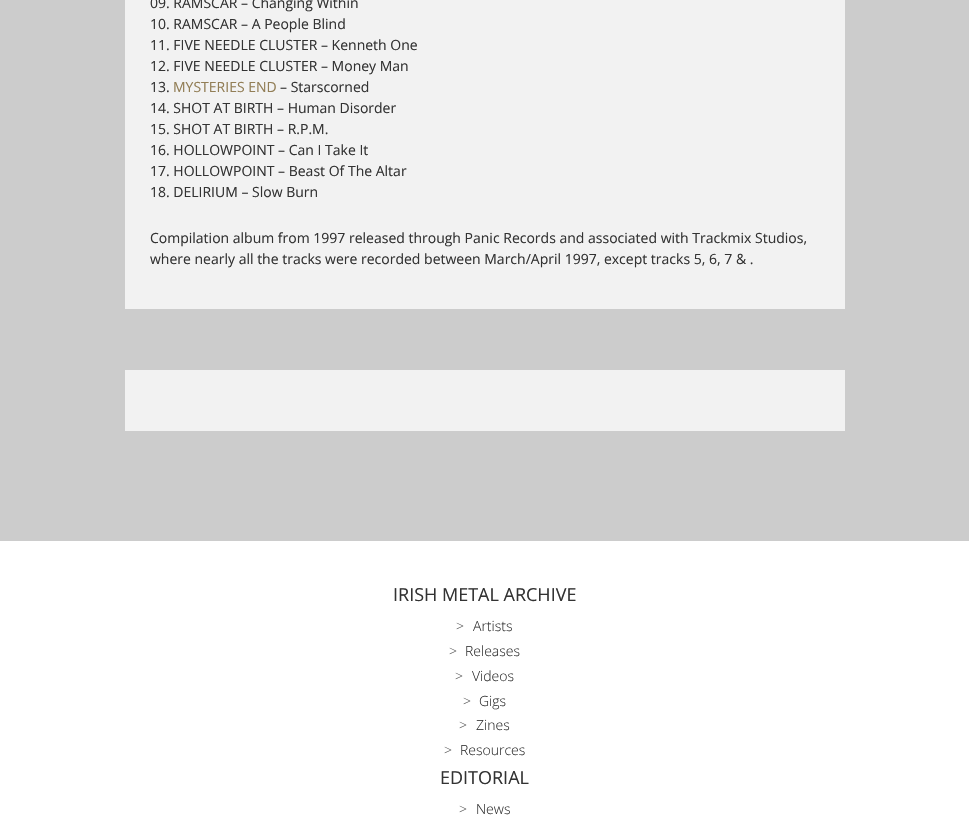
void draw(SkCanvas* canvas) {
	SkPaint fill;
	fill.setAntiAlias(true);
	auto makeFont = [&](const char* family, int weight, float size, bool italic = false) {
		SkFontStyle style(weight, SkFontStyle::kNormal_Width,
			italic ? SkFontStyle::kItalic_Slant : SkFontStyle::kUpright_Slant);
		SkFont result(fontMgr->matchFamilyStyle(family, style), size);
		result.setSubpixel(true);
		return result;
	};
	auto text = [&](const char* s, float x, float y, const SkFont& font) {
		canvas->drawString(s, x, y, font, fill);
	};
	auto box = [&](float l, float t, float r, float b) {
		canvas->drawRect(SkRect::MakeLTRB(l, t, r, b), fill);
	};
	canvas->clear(0xFFCCCCCC);
	fill.setColor(0xFFF2F2F2);
	box(125, 0, 845, 309);
	box(125, 370, 845, 431);
	fill.setColor(0xFFFFFFFF);
	box(0, 541, 969, 832);
	auto font1 = makeFont("Open Sans", 400, 14);
	fill.setColor(0xFF333333);
	text("09. RAMSCAR – Changing Within", 150, 8, font1);
	text("10. RAMSCAR – A People Blind", 150, 29, font1);
	text("11. FIVE NEEDLE CLUSTER – Kenneth One", 150, 50, font1);
	text("12. FIVE NEEDLE CLUSTER – Money Man", 150, 71, font1);
	text("13.", 150, 92, font1);
	fill.setColor(0xFF927E56);
	text("MYSTERIES END", 173, 92, font1);
	fill.setColor(0xFF333333);
	text("– Starscorned", 280, 92, font1);
	text("14. SHOT AT BIRTH – Human Disorder", 150, 113, font1);
	text("15. SHOT AT BIRTH – R.P.M.", 150, 134, font1);
	text("16. HOLLOWPOINT – Can I Take It", 150, 155, font1);
	text("17. HOLLOWPOINT – Beast Of The Altar", 150, 176, font1);
	text("18. DELIRIUM – Slow Burn", 150, 197, font1);
	text("Compilation album from 1997 released through Panic Records and associated with Trackmix Studios,", 150, 243, font1);
	text("where nearly all the tracks were recorded between March/April 1997, except tracks 5, 6, 7 & .", 150, 264, font1);
	auto font2 = makeFont("Open Sans", 400, 18);
	text("IRISH METAL ARCHIVE", 393, 601, font2);
	auto font3 = makeFont("Open Sans", 300, 14);
	fill.setColor(0xFF666666);
	text(">", 456, 631, font3);
	fill.setColor(0xFF333333);
	text("Artists", 473, 631, font3);
	fill.setColor(0xFF666666);
	text(">", 449, 656, font3);
	fill.setColor(0xFF333333);
	text("Releases", 465, 656, font3);
	fill.setColor(0xFF666666);
	text(">", 455, 681, font3);
	fill.setColor(0xFF333333);
	text("Videos", 472, 681, font3);
	fill.setColor(0xFF666666);
	text(">", 463, 706, font3);
	fill.setColor(0xFF333333);
	text("Gigs", 479, 706, font3);
	fill.setColor(0xFF666666);
	text(">", 459, 730, font3);
	fill.setColor(0xFF333333);
	text("Zines", 476, 730, font3);
	fill.setColor(0xFF666666);
	text(">", 444, 755, font3);
	fill.setColor(0xFF333333);
	text("Resources", 460, 755, font3);
	text("EDITORIAL", 440, 784, font2);
	fill.setColor(0xFF666666);
	text(">", 459, 814, font3);
	fill.setColor(0xFF333333);
	text("News", 476, 814, font3);
}
